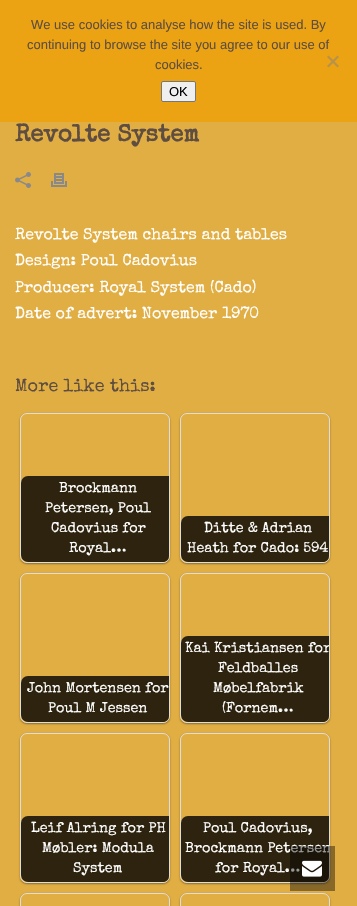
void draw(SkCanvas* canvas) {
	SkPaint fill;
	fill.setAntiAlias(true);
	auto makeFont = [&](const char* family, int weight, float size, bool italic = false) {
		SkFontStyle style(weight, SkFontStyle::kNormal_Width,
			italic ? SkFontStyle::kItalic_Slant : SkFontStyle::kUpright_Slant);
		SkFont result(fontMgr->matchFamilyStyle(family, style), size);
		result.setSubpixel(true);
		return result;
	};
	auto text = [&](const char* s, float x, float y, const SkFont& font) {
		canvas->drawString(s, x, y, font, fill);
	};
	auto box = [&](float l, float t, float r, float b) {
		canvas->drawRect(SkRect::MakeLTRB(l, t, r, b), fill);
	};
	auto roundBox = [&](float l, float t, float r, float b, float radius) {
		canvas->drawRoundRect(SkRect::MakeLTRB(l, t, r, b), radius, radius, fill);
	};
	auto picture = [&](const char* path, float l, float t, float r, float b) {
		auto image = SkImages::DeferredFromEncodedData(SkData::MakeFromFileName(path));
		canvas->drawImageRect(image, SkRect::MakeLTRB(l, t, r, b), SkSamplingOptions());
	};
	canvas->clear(0xFFE1AE44);
	fill.setColor(0xFFEBA313);
	box(0, 0, 357, 122);
	fill.setColor(0xFFB6924A);
	canvas->drawPath(SkPathBuilder().moveTo(337.5f, 55.5f).lineTo(339, 57).lineTo(328.5f, 67.5f).lineTo(327, 66).close().detach(), fill);
	canvas->drawPath(SkPathBuilder().moveTo(327, 57).lineTo(328.5f, 55.5f).lineTo(339, 66).lineTo(337.5f, 67.5f).close().detach(), fill);
	fill.setColor(0xFFEFEFEF);
	canvas->drawRoundRect(SkRect::MakeLTRB(161.5f, 81.5f, 195.5f, 101.5f), 1.5f, 1.5f, fill);
	fill.setStyle(SkPaint::kStroke_Style);
	fill.setStrokeWidth(1);
	fill.setColor(0xFF767676);
	canvas->drawRoundRect(SkRect::MakeLTRB(161.5f, 81.5f, 195.5f, 101.5f), 1.5f, 1.5f, fill);
	picture("image0.png", 15, 172, 31, 188);
	picture("image1.png", 51, 173, 67, 187);
	canvas->save();
	canvas->clipPath(SkPathBuilder(SkPathFillType::kEvenOdd).moveTo(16, 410).lineTo(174, 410).lineTo(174, 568).lineTo(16, 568).close().moveTo(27, 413).lineTo(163, 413).cubicTo(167, 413, 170, 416, 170, 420).lineTo(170, 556).cubicTo(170, 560, 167, 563, 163, 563).lineTo(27, 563).cubicTo(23, 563, 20, 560, 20, 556).lineTo(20, 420).cubicTo(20, 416, 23, 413, 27, 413).close().detach(), true);
	fill.setStyle(SkPaint::kFill_Style);
	fill.setColor(0x66000000);
	fill.setMaskFilter(SkMaskFilter::MakeBlur(kNormal_SkBlurStyle, 1));
	canvas->drawRoundRect(SkRect::MakeLTRB(20, 414, 170, 564), 7, 7, fill);
	fill.setMaskFilter(nullptr);
	canvas->restore();
	fill.setStyle(SkPaint::kStroke_Style);
	fill.setColor(0xFFDDDDDD);
	canvas->drawRoundRect(SkRect::MakeLTRB(20.5f, 413.5f, 169.5f, 562.5f), 6.5f, 6.5f, fill);
	canvas->save();
	canvas->clipPath(SkPathBuilder().moveTo(27, 414).lineTo(163, 414).cubicTo(166.5f, 414, 169, 416.5f, 169, 420).lineTo(169, 556).cubicTo(169, 559.5f, 166.5f, 562, 163, 562).lineTo(27, 562).cubicTo(23.5f, 562, 21, 559.5f, 21, 556).lineTo(21, 420).cubicTo(21, 416.5f, 23.5f, 414, 27, 414).close().detach(), true);
	fill.setStyle(SkPaint::kFill_Style);
	fill.setColor(0xCC000000);
	roundBox(21, 476, 175, 562, 7);
	canvas->restore();
	canvas->save();
	canvas->clipPath(SkPathBuilder(SkPathFillType::kEvenOdd).moveTo(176, 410).lineTo(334, 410).lineTo(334, 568).lineTo(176, 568).close().moveTo(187, 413).lineTo(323, 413).cubicTo(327, 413, 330, 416, 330, 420).lineTo(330, 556).cubicTo(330, 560, 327, 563, 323, 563).lineTo(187, 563).cubicTo(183, 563, 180, 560, 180, 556).lineTo(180, 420).cubicTo(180, 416, 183, 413, 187, 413).close().detach(), true);
	fill.setColor(0x66000000);
	fill.setMaskFilter(SkMaskFilter::MakeBlur(kNormal_SkBlurStyle, 1));
	canvas->drawRoundRect(SkRect::MakeLTRB(180, 414, 330, 564), 7, 7, fill);
	fill.setMaskFilter(nullptr);
	canvas->restore();
	fill.setStyle(SkPaint::kStroke_Style);
	fill.setColor(0xFFDDDDDD);
	canvas->drawRoundRect(SkRect::MakeLTRB(180.5f, 413.5f, 329.5f, 562.5f), 6.5f, 6.5f, fill);
	canvas->save();
	canvas->clipPath(SkPathBuilder().moveTo(187, 414).lineTo(323, 414).cubicTo(326.5f, 414, 329, 416.5f, 329, 420).lineTo(329, 556).cubicTo(329, 559.5f, 326.5f, 562, 323, 562).lineTo(187, 562).cubicTo(183.5f, 562, 181, 559.5f, 181, 556).lineTo(181, 420).cubicTo(181, 416.5f, 183.5f, 414, 187, 414).close().detach(), true);
	fill.setStyle(SkPaint::kFill_Style);
	fill.setColor(0xCC000000);
	roundBox(181, 516, 335, 562, 7);
	canvas->restore();
	canvas->save();
	canvas->clipPath(SkPathBuilder(SkPathFillType::kEvenOdd).moveTo(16, 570).lineTo(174, 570).lineTo(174, 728).lineTo(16, 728).close().moveTo(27, 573).lineTo(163, 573).cubicTo(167, 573, 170, 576, 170, 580).lineTo(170, 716).cubicTo(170, 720, 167, 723, 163, 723).lineTo(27, 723).cubicTo(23, 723, 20, 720, 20, 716).lineTo(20, 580).cubicTo(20, 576, 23, 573, 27, 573).close().detach(), true);
	fill.setColor(0x66000000);
	fill.setMaskFilter(SkMaskFilter::MakeBlur(kNormal_SkBlurStyle, 1));
	canvas->drawRoundRect(SkRect::MakeLTRB(20, 574, 170, 724), 7, 7, fill);
	fill.setMaskFilter(nullptr);
	canvas->restore();
	fill.setStyle(SkPaint::kStroke_Style);
	fill.setColor(0xFFDDDDDD);
	canvas->drawRoundRect(SkRect::MakeLTRB(20.5f, 573.5f, 169.5f, 722.5f), 6.5f, 6.5f, fill);
	canvas->save();
	canvas->clipPath(SkPathBuilder().moveTo(27, 574).lineTo(163, 574).cubicTo(166.5f, 574, 169, 576.5f, 169, 580).lineTo(169, 716).cubicTo(169, 719.5f, 166.5f, 722, 163, 722).lineTo(27, 722).cubicTo(23.5f, 722, 21, 719.5f, 21, 716).lineTo(21, 580).cubicTo(21, 576.5f, 23.5f, 574, 27, 574).close().detach(), true);
	fill.setStyle(SkPaint::kFill_Style);
	fill.setColor(0xCC000000);
	roundBox(21, 676, 175, 722, 7);
	canvas->restore();
	canvas->save();
	canvas->clipPath(SkPathBuilder(SkPathFillType::kEvenOdd).moveTo(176, 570).lineTo(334, 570).lineTo(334, 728).lineTo(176, 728).close().moveTo(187, 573).lineTo(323, 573).cubicTo(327, 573, 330, 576, 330, 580).lineTo(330, 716).cubicTo(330, 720, 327, 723, 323, 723).lineTo(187, 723).cubicTo(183, 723, 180, 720, 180, 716).lineTo(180, 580).cubicTo(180, 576, 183, 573, 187, 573).close().detach(), true);
	fill.setColor(0x66000000);
	fill.setMaskFilter(SkMaskFilter::MakeBlur(kNormal_SkBlurStyle, 1));
	canvas->drawRoundRect(SkRect::MakeLTRB(180, 574, 330, 724), 7, 7, fill);
	fill.setMaskFilter(nullptr);
	canvas->restore();
	fill.setStyle(SkPaint::kStroke_Style);
	fill.setColor(0xFFDDDDDD);
	canvas->drawRoundRect(SkRect::MakeLTRB(180.5f, 573.5f, 329.5f, 722.5f), 6.5f, 6.5f, fill);
	canvas->save();
	canvas->clipPath(SkPathBuilder().moveTo(187, 574).lineTo(323, 574).cubicTo(326.5f, 574, 329, 576.5f, 329, 580).lineTo(329, 716).cubicTo(329, 719.5f, 326.5f, 722, 323, 722).lineTo(187, 722).cubicTo(183.5f, 722, 181, 719.5f, 181, 716).lineTo(181, 580).cubicTo(181, 576.5f, 183.5f, 574, 187, 574).close().detach(), true);
	fill.setStyle(SkPaint::kFill_Style);
	fill.setColor(0xCC000000);
	roundBox(181, 636, 335, 722, 7);
	canvas->restore();
	canvas->save();
	canvas->clipPath(SkPathBuilder(SkPathFillType::kEvenOdd).moveTo(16, 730).lineTo(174, 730).lineTo(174, 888).lineTo(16, 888).close().moveTo(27, 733).lineTo(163, 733).cubicTo(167, 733, 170, 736, 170, 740).lineTo(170, 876).cubicTo(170, 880, 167, 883, 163, 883).lineTo(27, 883).cubicTo(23, 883, 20, 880, 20, 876).lineTo(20, 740).cubicTo(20, 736, 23, 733, 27, 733).close().detach(), true);
	fill.setColor(0x66000000);
	fill.setMaskFilter(SkMaskFilter::MakeBlur(kNormal_SkBlurStyle, 1));
	canvas->drawRoundRect(SkRect::MakeLTRB(20, 734, 170, 884), 7, 7, fill);
	fill.setMaskFilter(nullptr);
	canvas->restore();
	fill.setStyle(SkPaint::kStroke_Style);
	fill.setColor(0xFFDDDDDD);
	canvas->drawRoundRect(SkRect::MakeLTRB(20.5f, 733.5f, 169.5f, 882.5f), 6.5f, 6.5f, fill);
	canvas->save();
	canvas->clipPath(SkPathBuilder().moveTo(27, 734).lineTo(163, 734).cubicTo(166.5f, 734, 169, 736.5f, 169, 740).lineTo(169, 876).cubicTo(169, 879.5f, 166.5f, 882, 163, 882).lineTo(27, 882).cubicTo(23.5f, 882, 21, 879.5f, 21, 876).lineTo(21, 740).cubicTo(21, 736.5f, 23.5f, 734, 27, 734).close().detach(), true);
	fill.setStyle(SkPaint::kFill_Style);
	fill.setColor(0xCC000000);
	roundBox(21, 816, 175, 882, 7);
	canvas->restore();
	canvas->save();
	canvas->clipPath(SkPathBuilder(SkPathFillType::kEvenOdd).moveTo(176, 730).lineTo(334, 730).lineTo(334, 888).lineTo(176, 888).close().moveTo(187, 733).lineTo(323, 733).cubicTo(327, 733, 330, 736, 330, 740).lineTo(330, 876).cubicTo(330, 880, 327, 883, 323, 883).lineTo(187, 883).cubicTo(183, 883, 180, 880, 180, 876).lineTo(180, 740).cubicTo(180, 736, 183, 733, 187, 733).close().detach(), true);
	fill.setColor(0x66000000);
	fill.setMaskFilter(SkMaskFilter::MakeBlur(kNormal_SkBlurStyle, 1));
	canvas->drawRoundRect(SkRect::MakeLTRB(180, 734, 330, 884), 7, 7, fill);
	fill.setMaskFilter(nullptr);
	canvas->restore();
	fill.setStyle(SkPaint::kStroke_Style);
	fill.setColor(0xFFDDDDDD);
	canvas->drawRoundRect(SkRect::MakeLTRB(180.5f, 733.5f, 329.5f, 882.5f), 6.5f, 6.5f, fill);
	canvas->save();
	canvas->clipPath(SkPathBuilder().moveTo(187, 734).lineTo(323, 734).cubicTo(326.5f, 734, 329, 736.5f, 329, 740).lineTo(329, 876).cubicTo(329, 879.5f, 326.5f, 882, 323, 882).lineTo(187, 882).cubicTo(183.5f, 882, 181, 879.5f, 181, 876).lineTo(181, 740).cubicTo(181, 736.5f, 183.5f, 734, 187, 734).close().detach(), true);
	fill.setStyle(SkPaint::kFill_Style);
	fill.setColor(0xCC000000);
	roundBox(181, 816, 335, 882, 7);
	canvas->restore();
	canvas->save();
	canvas->clipPath(SkPathBuilder(SkPathFillType::kEvenOdd).moveTo(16, 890).lineTo(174, 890).lineTo(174, 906).lineTo(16, 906).close().moveTo(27, 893).lineTo(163, 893).cubicTo(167, 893, 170, 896, 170, 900).lineTo(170, 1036).cubicTo(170, 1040, 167, 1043, 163, 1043).lineTo(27, 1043).cubicTo(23, 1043, 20, 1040, 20, 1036).lineTo(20, 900).cubicTo(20, 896, 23, 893, 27, 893).close().detach(), true);
	fill.setColor(0x66000000);
	fill.setMaskFilter(SkMaskFilter::MakeBlur(kNormal_SkBlurStyle, 1));
	canvas->drawRoundRect(SkRect::MakeLTRB(20, 894, 170, 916), 7, 7, fill);
	fill.setMaskFilter(nullptr);
	canvas->restore();
	fill.setStyle(SkPaint::kStroke_Style);
	fill.setColor(0xFFDDDDDD);
	canvas->drawRoundRect(SkRect::MakeLTRB(20.5f, 893.5f, 169.5f, 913.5f), 6.5f, 6.5f, fill);
	canvas->save();
	canvas->clipPath(SkPathBuilder(SkPathFillType::kEvenOdd).moveTo(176, 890).lineTo(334, 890).lineTo(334, 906).lineTo(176, 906).close().moveTo(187, 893).lineTo(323, 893).cubicTo(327, 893, 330, 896, 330, 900).lineTo(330, 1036).cubicTo(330, 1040, 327, 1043, 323, 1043).lineTo(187, 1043).cubicTo(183, 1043, 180, 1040, 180, 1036).lineTo(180, 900).cubicTo(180, 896, 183, 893, 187, 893).close().detach(), true);
	fill.setStyle(SkPaint::kFill_Style);
	fill.setColor(0x66000000);
	fill.setMaskFilter(SkMaskFilter::MakeBlur(kNormal_SkBlurStyle, 1));
	canvas->drawRoundRect(SkRect::MakeLTRB(180, 894, 330, 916), 7, 7, fill);
	fill.setMaskFilter(nullptr);
	canvas->restore();
	fill.setStyle(SkPaint::kStroke_Style);
	fill.setColor(0xFFDDDDDD);
	canvas->drawRoundRect(SkRect::MakeLTRB(180.5f, 893.5f, 329.5f, 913.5f), 6.5f, 6.5f, fill);
	auto font1 = makeFont("Liberation Sans", 400, 13);
	fill.setStyle(SkPaint::kFill_Style);
	fill.setColor(0xFF5E4D40);
	text("We use cookies to analyse how the site is used. By", 31, 29, font1);
	text("continuing to browse the site you agree to our use of", 27, 49, font1);
	text("cookies.", 155, 69, font1);
	fill.setColor(0xFF000000);
	text("OK", 169, 96, font1);
	auto font2 = makeFont("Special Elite", 700, 24);
	fill.setColor(0xFF5E4D40);
	text("Revolte System", 15, 141, font2);
	auto font3 = makeFont("Special Elite", 400, 16);
	fill.setColor(0xFFFFFFFF);
	text("Revolte System chairs and tables", 15, 239, font3);
	text("Design: Poul Cadovius", 15, 265, font3);
	text("Producer: Royal System (Cado)", 15, 292, font3);
	text("Date of advert: November 1970", 15, 318, font3);
	auto font4 = makeFont("Special Elite", 400, 18);
	fill.setColor(0xFF5E4D40);
	text("More like this:", 15, 391, font4);
	auto font5 = makeFont("Special Elite", 400, 14.4f);
	fill.setColor(0xFFFFFFFF);
	text("Brockmann", 59, 492, font5);
	text("Petersen, Poul", 45, 512, font5);
	text("Cadovius for", 51, 532, font5);
	text("Royal…", 69, 552, font5);
	text("Ditte & Adrian", 204, 532, font5);
	text("Heath for Cado: 594", 187, 552, font5);
	text("John Mortensen for", 27, 692, font5);
	text("Poul M Jessen", 48, 712, font5);
	canvas->save();
	canvas->clipRect(SkRect::MakeLTRB(181, 574, 329, 722));
	text("Kai Kristiansen for", 185, 652, font5);
	canvas->restore();
	text("Feldballes", 218, 672, font5);
	text("Møbelfabrik", 213, 692, font5);
	text("(Fornem…", 222, 712, font5);
	text("Leif Alring for PH", 31, 832, font5);
	text("Møbler: Modula", 42, 852, font5);
	text("System", 73, 872, font5);
	text("Poul Cadovius,", 203, 832, font5);
	canvas->save();
	canvas->clipRect(SkRect::MakeLTRB(181, 734, 329, 882));
	text("Brockmann Petersen", 185, 852, font5);
	canvas->restore();
	text("for Royal…", 215, 872, font5);
	fill.setColor(0x66000000);
	box(290, 846, 335, 891);
	picture("image2.png", 302, 860, 322, 877);
}
